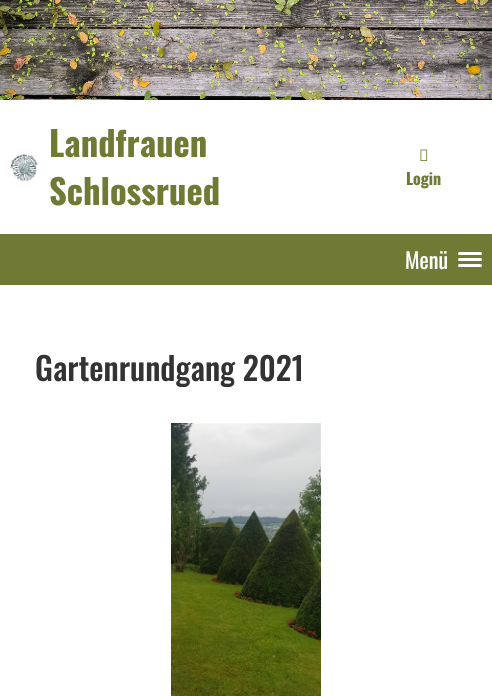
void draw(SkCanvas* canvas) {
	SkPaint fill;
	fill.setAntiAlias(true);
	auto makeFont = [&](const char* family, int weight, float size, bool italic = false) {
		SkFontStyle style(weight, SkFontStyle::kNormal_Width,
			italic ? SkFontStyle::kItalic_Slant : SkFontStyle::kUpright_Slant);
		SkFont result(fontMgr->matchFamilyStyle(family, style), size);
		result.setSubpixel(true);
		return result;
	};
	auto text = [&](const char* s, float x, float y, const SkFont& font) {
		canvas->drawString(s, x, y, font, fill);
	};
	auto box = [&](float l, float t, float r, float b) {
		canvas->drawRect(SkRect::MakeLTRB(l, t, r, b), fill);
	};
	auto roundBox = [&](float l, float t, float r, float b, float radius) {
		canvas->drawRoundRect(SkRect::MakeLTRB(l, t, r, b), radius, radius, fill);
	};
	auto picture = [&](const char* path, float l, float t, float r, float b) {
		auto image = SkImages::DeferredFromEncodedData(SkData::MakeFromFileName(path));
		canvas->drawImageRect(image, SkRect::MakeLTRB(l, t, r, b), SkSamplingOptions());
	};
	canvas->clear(0xFFFFFFFF);
	picture("image0.png", 0, 0, 492, 100);
	picture("image1.png", 10, 154, 38, 182);
	picture("image2.png", 420, 149, 428, 161);
	fill.setColor(0xFF707A35);
	box(0, 234, 492, 285);
	fill.setColor(0xFFFFFFFF);
	roundBox(458, 252, 482, 255, 1.5f);
	roundBox(458, 258, 482, 261, 1.5f);
	roundBox(458, 264, 482, 267, 1.5f);
	picture("image3.png", 171, 423, 321, 696);
	auto font1 = makeFont("Oswald", 700, 34.5f);
	fill.setColor(0xFF707A35);
	text("Landfrauen", 49, 157, font1);
	text("Schlossrued", 49, 205, font1);
	auto font2 = makeFont("Oswald", 700, 16);
	text("Login", 406, 185, font2);
	auto font3 = makeFont("Oswald", 400, 22);
	fill.setColor(0xFFFFFFFF);
	text("Menü", 405, 269, font3);
	auto font4 = makeFont("Oswald", 500, 32);
	fill.setColor(0xFF333333);
	text("Gartenrundgang 2021", 35, 381, font4);
}
